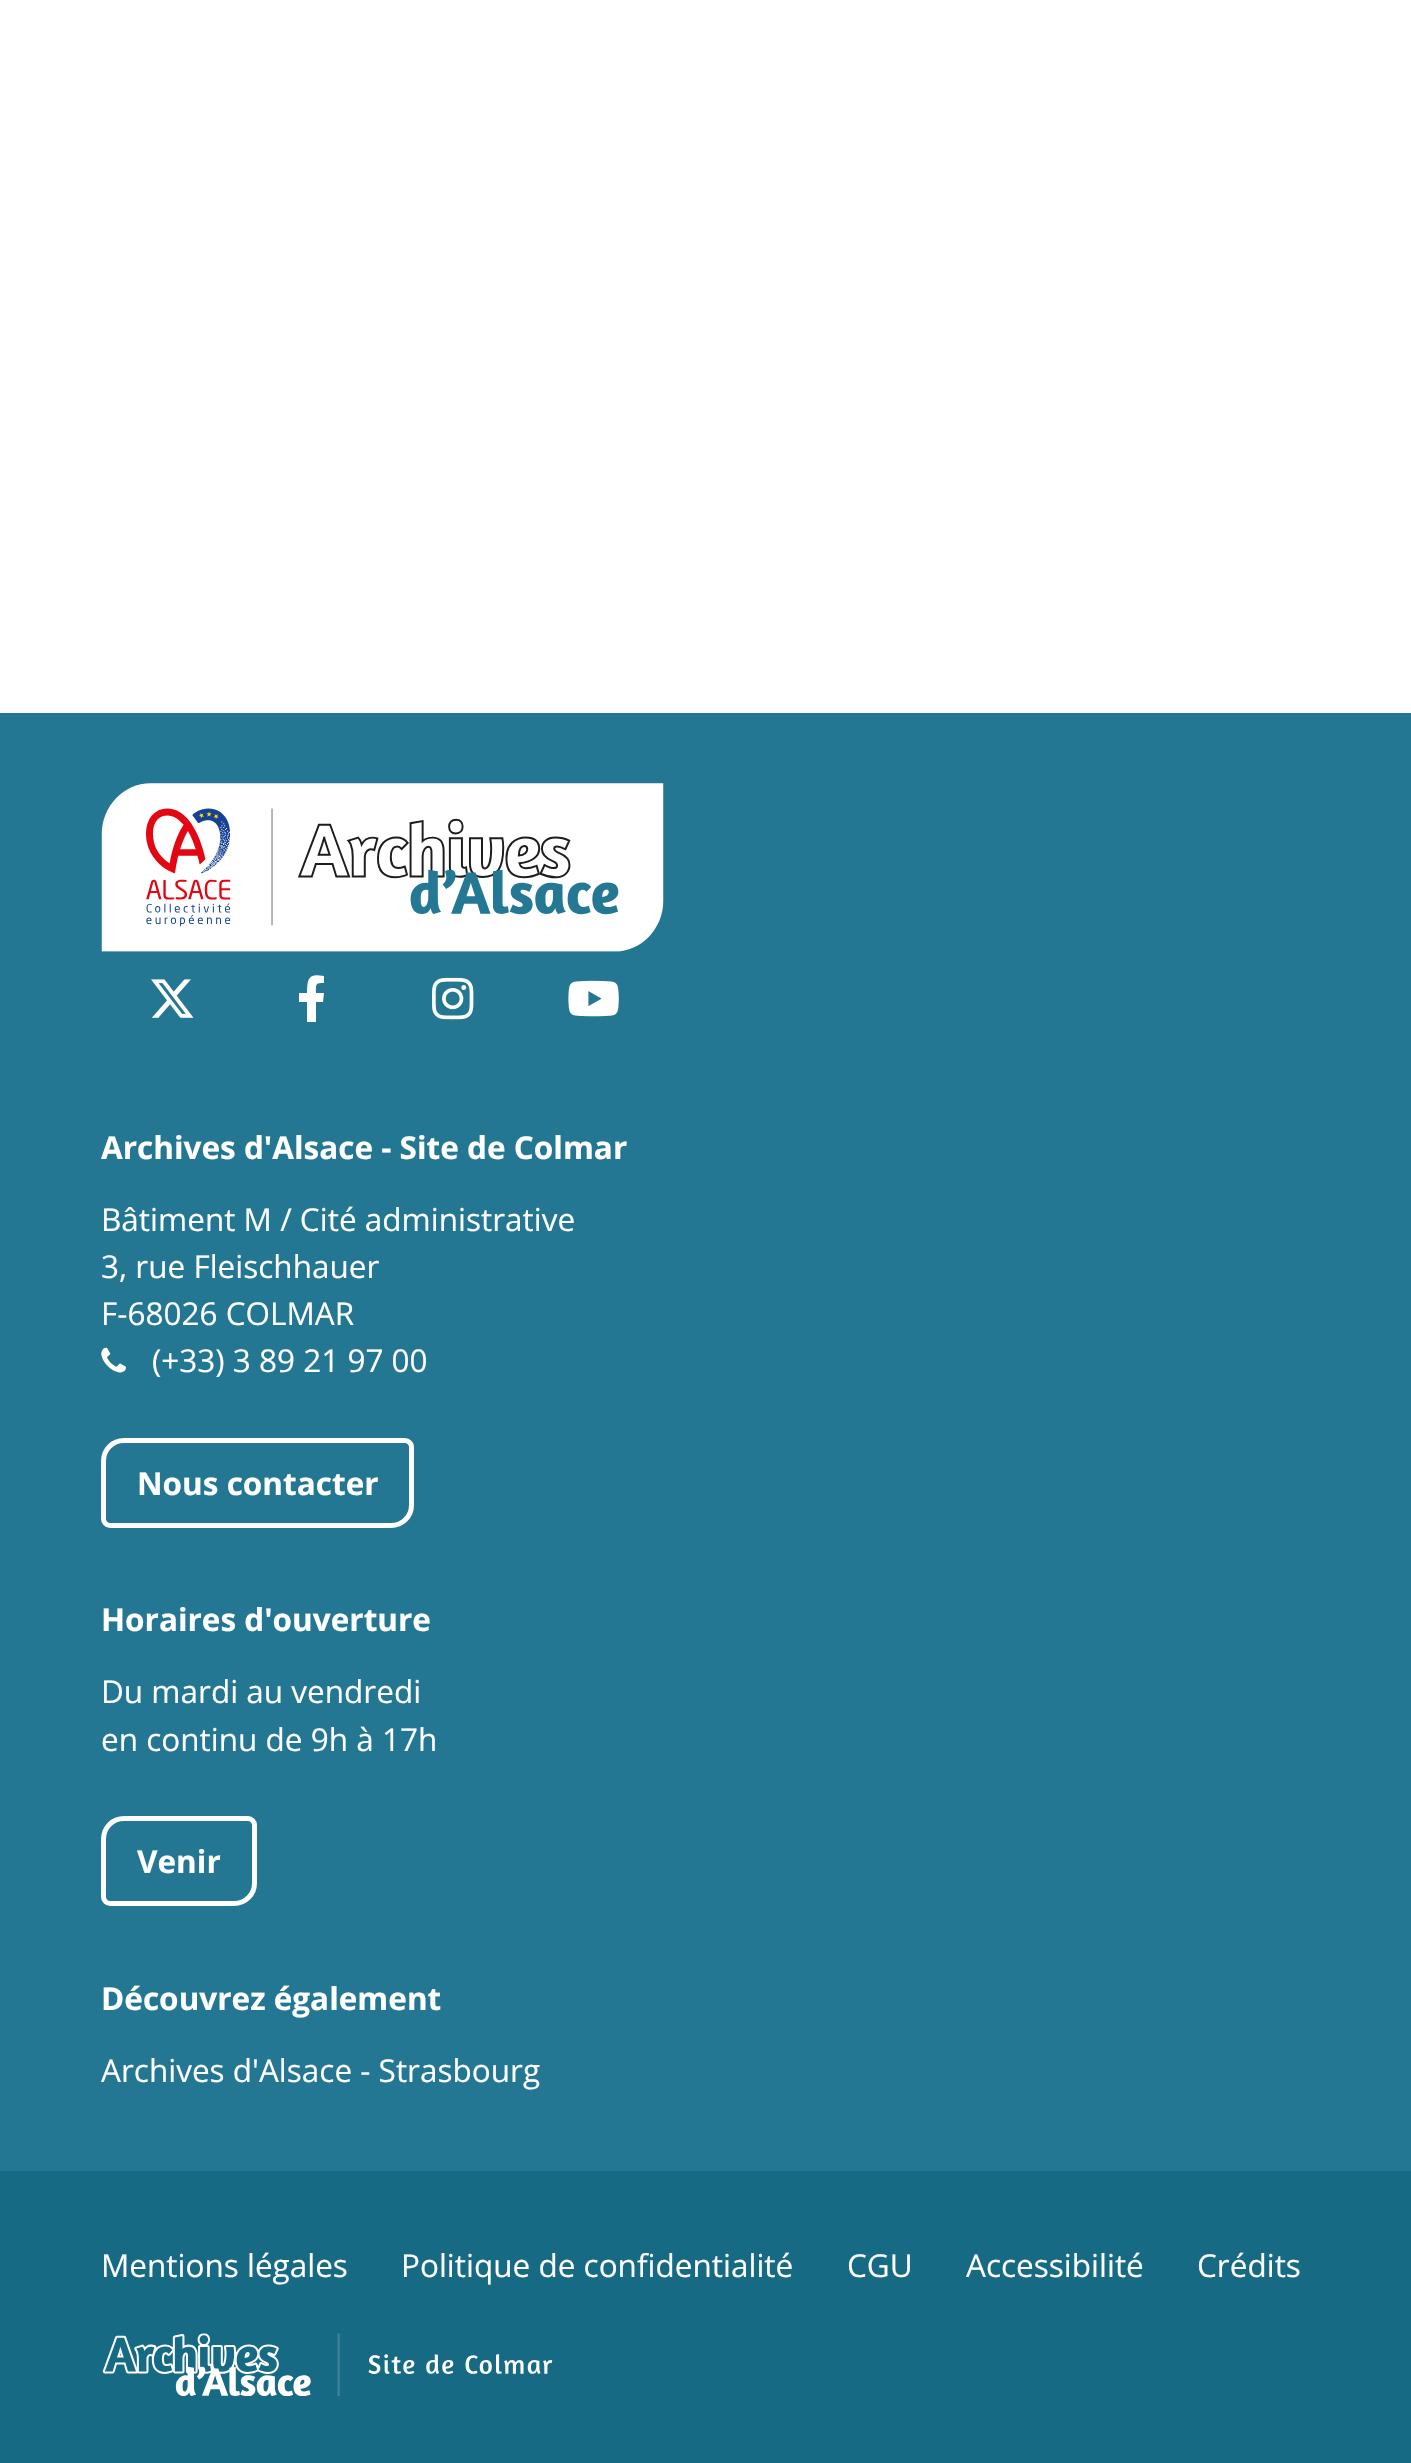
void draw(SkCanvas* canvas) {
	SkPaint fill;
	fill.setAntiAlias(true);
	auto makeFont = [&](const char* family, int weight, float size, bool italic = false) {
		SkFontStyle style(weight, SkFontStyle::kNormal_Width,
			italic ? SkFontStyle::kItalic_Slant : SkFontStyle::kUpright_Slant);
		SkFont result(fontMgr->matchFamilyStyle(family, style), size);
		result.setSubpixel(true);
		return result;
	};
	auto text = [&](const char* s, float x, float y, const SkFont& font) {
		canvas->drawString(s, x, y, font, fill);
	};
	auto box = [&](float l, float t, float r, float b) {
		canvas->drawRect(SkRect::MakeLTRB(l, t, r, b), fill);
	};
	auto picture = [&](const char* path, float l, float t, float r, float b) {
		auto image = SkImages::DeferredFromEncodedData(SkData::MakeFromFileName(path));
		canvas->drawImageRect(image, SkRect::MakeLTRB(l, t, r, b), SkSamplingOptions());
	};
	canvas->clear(0xFFFFFFFF);
	fill.setColor(0xFF237792);
	box(0, 713, 1411, 2171);
	picture("image0.png", 101, 783, 664, 952);
	picture("image1.png", 151, 979, 194, 1018);
	fill.setColor(0xFFFFFFFF);
	canvas->drawPath(SkPathBuilder().moveTo(323, 1002).lineTo(324, 993).lineTo(316, 993).cubicTo(316, 984, 315, 983, 324, 983).lineTo(324, 976).cubicTo(309, 973, 307, 978, 307, 993).lineTo(299, 993).lineTo(299, 1002).lineTo(307, 1002).lineTo(307, 1022).lineTo(316, 1022).lineTo(316, 1002).close().detach(), fill);
	picture("image2.png", 432, 977, 474, 1020);
	picture("image3.png", 568, 980, 619, 1017);
	picture("image4.png", 101, 1347, 126, 1373);
	fill.setStyle(SkPaint::kStroke_Style);
	fill.setStrokeWidth(5);
	canvas->drawPath(SkPathBuilder().moveTo(124, 1440.5f).lineTo(405, 1440.5f).cubicTo(408.5f, 1440.5f, 411.5f, 1443.5f, 411.5f, 1447).lineTo(411.5f, 1505).cubicTo(411.5f, 1516.5f, 402.5f, 1525.5f, 391, 1525.5f).lineTo(110, 1525.5f).cubicTo(106.5f, 1525.5f, 103.5f, 1522.5f, 103.5f, 1519).lineTo(103.5f, 1461).cubicTo(103.5f, 1449.5f, 112.5f, 1440.5f, 124, 1440.5f).close().detach(), fill);
	canvas->drawPath(SkPathBuilder().moveTo(124, 1818.5f).lineTo(248, 1818.5f).cubicTo(251.5f, 1818.5f, 254.5f, 1821.5f, 254.5f, 1825).lineTo(254.5f, 1883).cubicTo(254.5f, 1894.5f, 245.5f, 1903.5f, 234, 1903.5f).lineTo(110, 1903.5f).cubicTo(106.5f, 1903.5f, 103.5f, 1900.5f, 103.5f, 1897).lineTo(103.5f, 1839).cubicTo(103.5f, 1827.5f, 112.5f, 1818.5f, 124, 1818.5f).close().detach(), fill);
	fill.setStyle(SkPaint::kFill_Style);
	fill.setColor(0xFF176A84);
	box(0, 2171, 1411, 2463);
	picture("image5.png", 102, 2333, 553, 2396);
	auto font1 = makeFont("Open Sans", 700, 31.5f);
	fill.setColor(0xFFFFFFFF);
	text("Archives d'Alsace - Site de Colmar", 101, 1159, font1);
	auto font2 = makeFont("Open Sans", 400, 31.5f);
	text("Bâtiment M / Cité administrative", 101, 1231, font2);
	text("3, rue Fleischhauer", 101, 1278, font2);
	text("F-68026 COLMAR", 101, 1325, font2);
	text("(+33) 3 89 21 97 00", 152, 1372, font2);
	text("Nous contacter", 137, 1495, font1);
	text("Horaires d'ouverture", 101, 1631, font1);
	text("Du mardi au vendredi", 101, 1703, font2);
	text("en continu de 9h à 17h", 101, 1751, font2);
	text("Venir", 137, 1873, font1);
	text("Découvrez également", 101, 2010, font1);
	text("Archives d'Alsace - Strasbourg", 101, 2082, font2);
	text("Mentions légales", 101, 2277, font2);
	text("Politique de confidentialité", 401, 2277, font2);
	text("CGU", 847, 2277, font2);
	text("Accessibilité", 966, 2277, font2);
	text("Crédits", 1197, 2277, font2);
}
